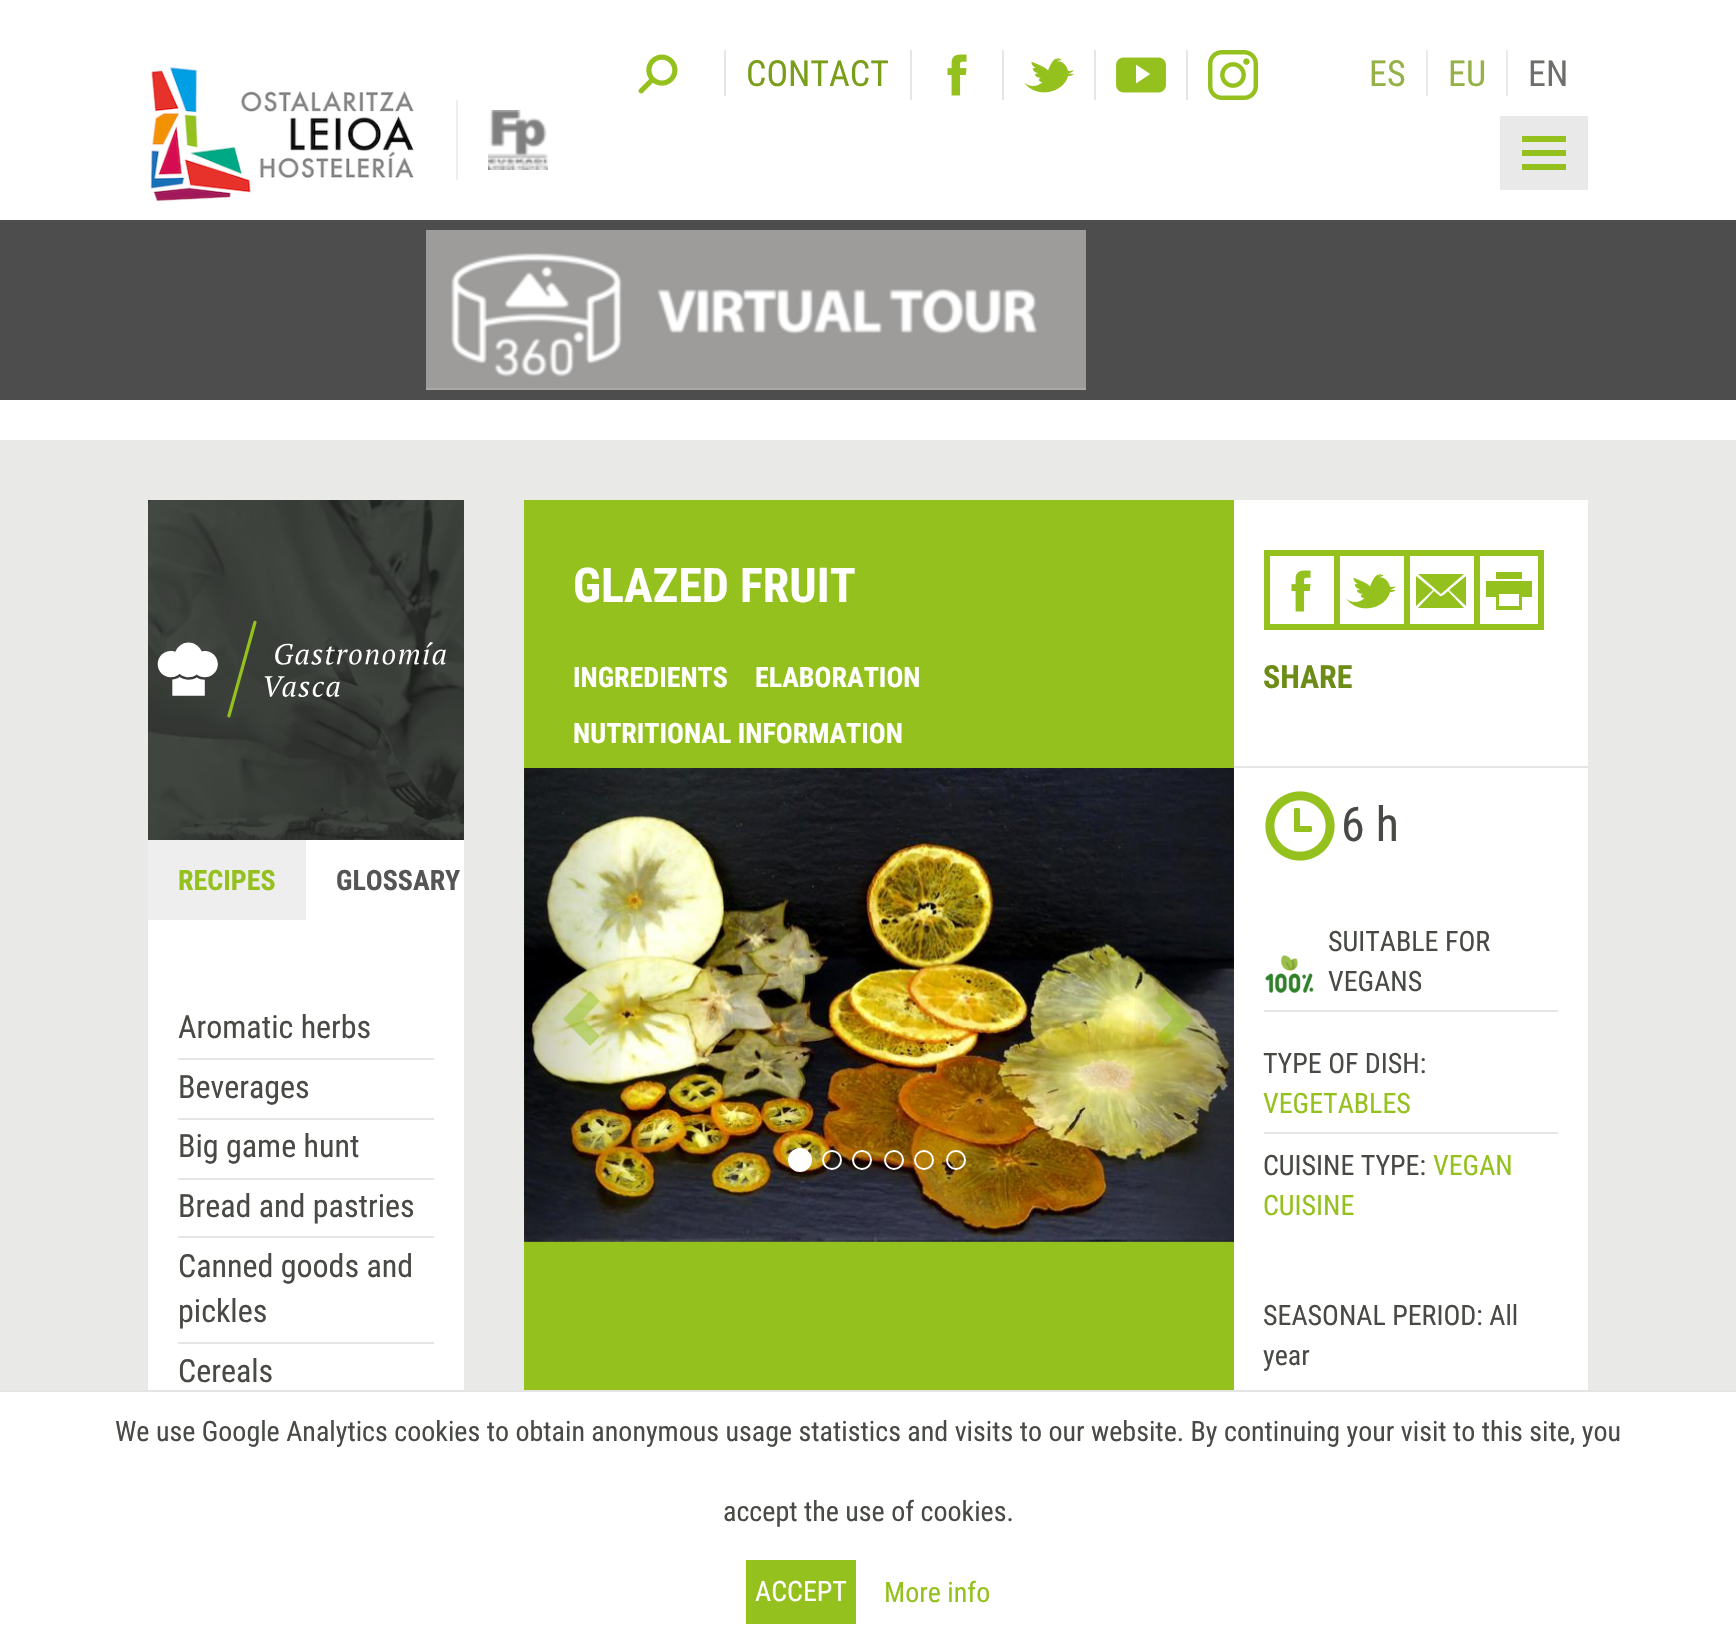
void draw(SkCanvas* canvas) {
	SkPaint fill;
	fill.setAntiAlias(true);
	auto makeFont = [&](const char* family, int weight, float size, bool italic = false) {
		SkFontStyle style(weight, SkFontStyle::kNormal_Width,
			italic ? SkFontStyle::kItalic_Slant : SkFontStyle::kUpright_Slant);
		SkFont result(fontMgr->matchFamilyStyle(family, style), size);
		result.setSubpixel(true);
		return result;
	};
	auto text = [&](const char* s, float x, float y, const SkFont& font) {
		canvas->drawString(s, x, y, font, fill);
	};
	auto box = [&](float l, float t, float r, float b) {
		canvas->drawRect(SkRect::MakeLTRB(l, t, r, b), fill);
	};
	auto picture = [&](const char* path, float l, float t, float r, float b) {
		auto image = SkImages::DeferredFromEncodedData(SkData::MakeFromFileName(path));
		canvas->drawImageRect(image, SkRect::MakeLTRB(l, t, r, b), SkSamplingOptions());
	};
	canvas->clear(0xFFFFFFFF);
	picture("image0.png", 638, 54, 678, 94);
	fill.setColor(0xFFE5E5E5);
	box(724, 50, 726, 96);
	box(910, 50, 912, 100);
	picture("image1.png", 947, 54, 967, 96);
	box(1002, 50, 1004, 100);
	picture("image2.png", 1024, 58, 1074, 93);
	box(1094, 50, 1096, 100);
	picture("image3.png", 1116, 57, 1166, 93);
	box(1186, 50, 1188, 100);
	picture("image4.png", 1208, 50, 1258, 100);
	fill.setColor(0xFFEAEAEA);
	box(1426, 50, 1428, 96);
	box(1506, 50, 1508, 96);
	picture("image5.png", 150, 67, 414, 202);
	fill.setColor(0xFFEEEEEE);
	box(456, 100, 458, 180);
	picture("image6.png", 488, 110, 548, 170);
	fill.setColor(0xFFE9E9E9);
	box(1500, 116, 1588, 190);
	fill.setColor(0xFF95C11F);
	box(1522, 136, 1566, 142);
	box(1522, 150, 1566, 156);
	box(1522, 164, 1566, 170);
	fill.setColor(0xFF4D4D4D);
	box(0, 220, 1736, 400);
	picture("image7.png", 426, 230, 1086, 390);
	fill.setColor(0xFFE9EAE8);
	box(0, 440, 1736, 1390);
	picture("image8.png", 148, 500, 464, 840);
	fill.setColor(0xFFEEEEEE);
	box(148, 840, 306, 920);
	fill.setColor(0xFFFFFFFF);
	box(306, 840, 464, 920);
	box(148, 920, 464, 1390);
	fill.setColor(0xFFE5E5E5);
	box(178, 1058, 434, 1060);
	box(178, 1118, 434, 1120);
	box(178, 1178, 434, 1180);
	box(178, 1236, 434, 1238);
	box(178, 1342, 434, 1344);
	fill.setColor(0xFF95C11F);
	box(524, 500, 1234, 1390);
	fill.setColor(0xFFFFFFFF);
	box(1234, 500, 1588, 766);
	fill.setColor(0xFFE5E5E5);
	box(1234, 766, 1588, 768);
	fill.setColor(0xFF95C11F);
	box(1264, 550, 1474, 556);
	box(1264, 624, 1474, 630);
	box(1264, 550, 1270, 630);
	picture("image1.png", 1291, 570, 1311, 612);
	box(1334, 550, 1340, 630);
	picture("image2.png", 1346, 574, 1396, 609);
	box(1404, 550, 1410, 630);
	canvas->drawPath(SkPathBuilder(SkPathFillType::kEvenOdd).moveTo(1466, 606).lineTo(1449, 590).lineTo(1466, 576).close().moveTo(1418, 574).lineTo(1464, 574).lineTo(1441, 594).close().moveTo(1416, 606).lineTo(1416, 576).lineTo(1433, 590).close().moveTo(1440, 596).cubicTo(1442, 597, 1447, 592, 1448, 591).lineTo(1464, 608).lineTo(1418, 608).lineTo(1434, 591).close().detach(), fill);
	fill.setStyle(SkPaint::kStroke_Style);
	fill.setStrokeWidth(6);
	canvas->drawRect(SkRect::MakeLTRB(1477, 553, 1541, 627), fill);
	fill.setStyle(SkPaint::kFill_Style);
	box(1496, 572, 1522, 579);
	canvas->drawPath(SkPathBuilder().moveTo(1486, 581).lineTo(1486, 597).lineTo(1496, 597).lineTo(1496, 610).lineTo(1522, 610).lineTo(1522, 597).lineTo(1532, 597).lineTo(1532, 581).close().moveTo(1519, 606).lineTo(1499, 606).lineTo(1499, 594).lineTo(1519, 594).close().detach(), fill);
	picture("image9.png", 524, 768, 1234, 1242);
	{
		const SkColor colors[] = {0x40000000, 0x00000000};
		const float stops[] = {0, 1};
		const SkPoint ends[] = {{524, 1005}, {630, 1005}};
		fill.setShader(SkGradientShader::MakeLinear(ends, colors, stops, 2, SkTileMode::kClamp));
		fill.setAlpha(255);
	}
	box(524, 768, 621, 1242);
	fill.setShader(nullptr);
	fill.setColor(0x8095C11F);
	canvas->drawPath(SkPathBuilder().moveTo(600, 1001).lineTo(583, 1019).lineTo(600, 1036).lineTo(590, 1046).lineTo(563, 1019).lineTo(590, 991).close().detach(), fill);
	fill.setColor(0xFFFFFFFF);
	canvas->drawCircle(800, 1160, 11, fill);
	fill.setStyle(SkPaint::kStroke_Style);
	fill.setStrokeWidth(2);
	canvas->drawCircle(800, 1160, 11, fill);
	canvas->drawCircle(832, 1160, 9, fill);
	canvas->drawCircle(862, 1160, 9, fill);
	canvas->drawCircle(894, 1160, 9, fill);
	canvas->drawCircle(924, 1160, 9, fill);
	canvas->drawCircle(956, 1160, 9, fill);
	fill.setStyle(SkPaint::kFill_Style);
	{
		const SkColor colors[] = {0x00000000, 0x40000000};
		const float stops[] = {0, 1};
		const SkPoint ends[] = {{1126, 1005}, {1234, 1005}};
		fill.setShader(SkGradientShader::MakeLinear(ends, colors, stops, 2, SkTileMode::kClamp));
		fill.setAlpha(255);
	}
	box(1135, 768, 1234, 1242);
	fill.setShader(nullptr);
	fill.setColor(0x8095C11F);
	canvas->drawPath(SkPathBuilder().moveTo(1193, 1019).lineTo(1166, 1046).lineTo(1156, 1036).lineTo(1173, 1019).lineTo(1156, 1001).lineTo(1166, 991).close().detach(), fill);
	fill.setColor(0xFFFFFFFF);
	box(1234, 768, 1588, 1390);
	picture("image10.png", 1265, 791, 1335, 861);
	fill.setColor(0xFFE5E5E5);
	box(1264, 1010, 1558, 1012);
	picture("image11.png", 1265, 955, 1314, 994);
	box(1264, 1132, 1558, 1134);
	fill.setColor(0xFFE4E4E4);
	box(0, 1390, 1736, 1392);
	fill.setColor(0xFF95C11F);
	box(746, 1560, 856, 1624);
	auto font1 = makeFont("Roboto Condensed", 400, 36);
	fill.setColor(0xFF7B9E1A);
	text("CONTACT", 746, 86, font1);
	fill.setColor(0xFF95B148);
	text("ES", 1369, 86, font1);
	text("EU", 1448, 86, font1);
	fill.setColor(0xFF6D6F6A);
	text("EN", 1528, 86, font1);
	auto font2 = makeFont("Roboto Condensed", 700, 28);
	fill.setColor(0xFF95C11F);
	text("RECIPES", 178, 890, font2);
	fill.setColor(0xFF555555);
	text("GLOSSARY", 336, 890, font2);
	auto font3 = makeFont("Roboto Condensed", 400, 32);
	fill.setColor(0xFF484B45);
	text("Aromatic herbs", 178, 1038, font3);
	text("Beverages", 178, 1098, font3);
	text("Big game hunt", 178, 1157, font3);
	text("Bread and pastries", 178, 1217, font3);
	text("Canned goods and", 178, 1277, font3);
	text("pickles", 178, 1322, font3);
	text("Cereals", 178, 1382, font3);
	auto font4 = makeFont("Roboto Condensed", 700, 48);
	fill.setColor(0xFFFFFFFF);
	text("GLAZED FRUIT", 573, 602, font4);
	text("INGREDIENTS", 573, 687, font2);
	text("ELABORATION", 755, 687, font2);
	text("NUTRITIONAL INFORMATION", 573, 743, font2);
	auto font5 = makeFont("Roboto Condensed", 700, 32);
	fill.setColor(0xFF6D8C17);
	text("SHARE", 1263, 688, font5);
	auto font6 = makeFont("Roboto Condensed", 400, 48);
	fill.setColor(0xFF484B45);
	text("6 h", 1341, 841, font6);
	auto font7 = makeFont("Roboto Condensed", 400, 28);
	text("SUITABLE FOR", 1328, 951, font7);
	text("VEGANS", 1328, 991, font7);
	text("TYPE OF DISH:", 1263, 1073, font7);
	fill.setColor(0xFF95C11F);
	text("VEGETABLES", 1263, 1113, font7);
	fill.setColor(0xFF484B45);
	text("CUISINE TYPE:", 1263, 1175, font7);
	fill.setColor(0xFF95C11F);
	text("VEGAN", 1433, 1175, font7);
	text("CUISINE", 1263, 1215, font7);
	fill.setColor(0xFF484B45);
	text("SEASONAL PERIOD: All", 1263, 1325, font7);
	text("year", 1263, 1365, font7);
	text("We use Google Analytics cookies to obtain anonymous usage statistics and visits to our website. By continuing your visit to this site, you", 115, 1441, font7);
	text("accept the use of cookies.", 723, 1521, font7);
	fill.setColor(0xFFFFFFFF);
	text("ACCEPT", 755, 1601, font7);
	fill.setColor(0xFF95C11F);
	text("More info", 884, 1602, font7);
}
